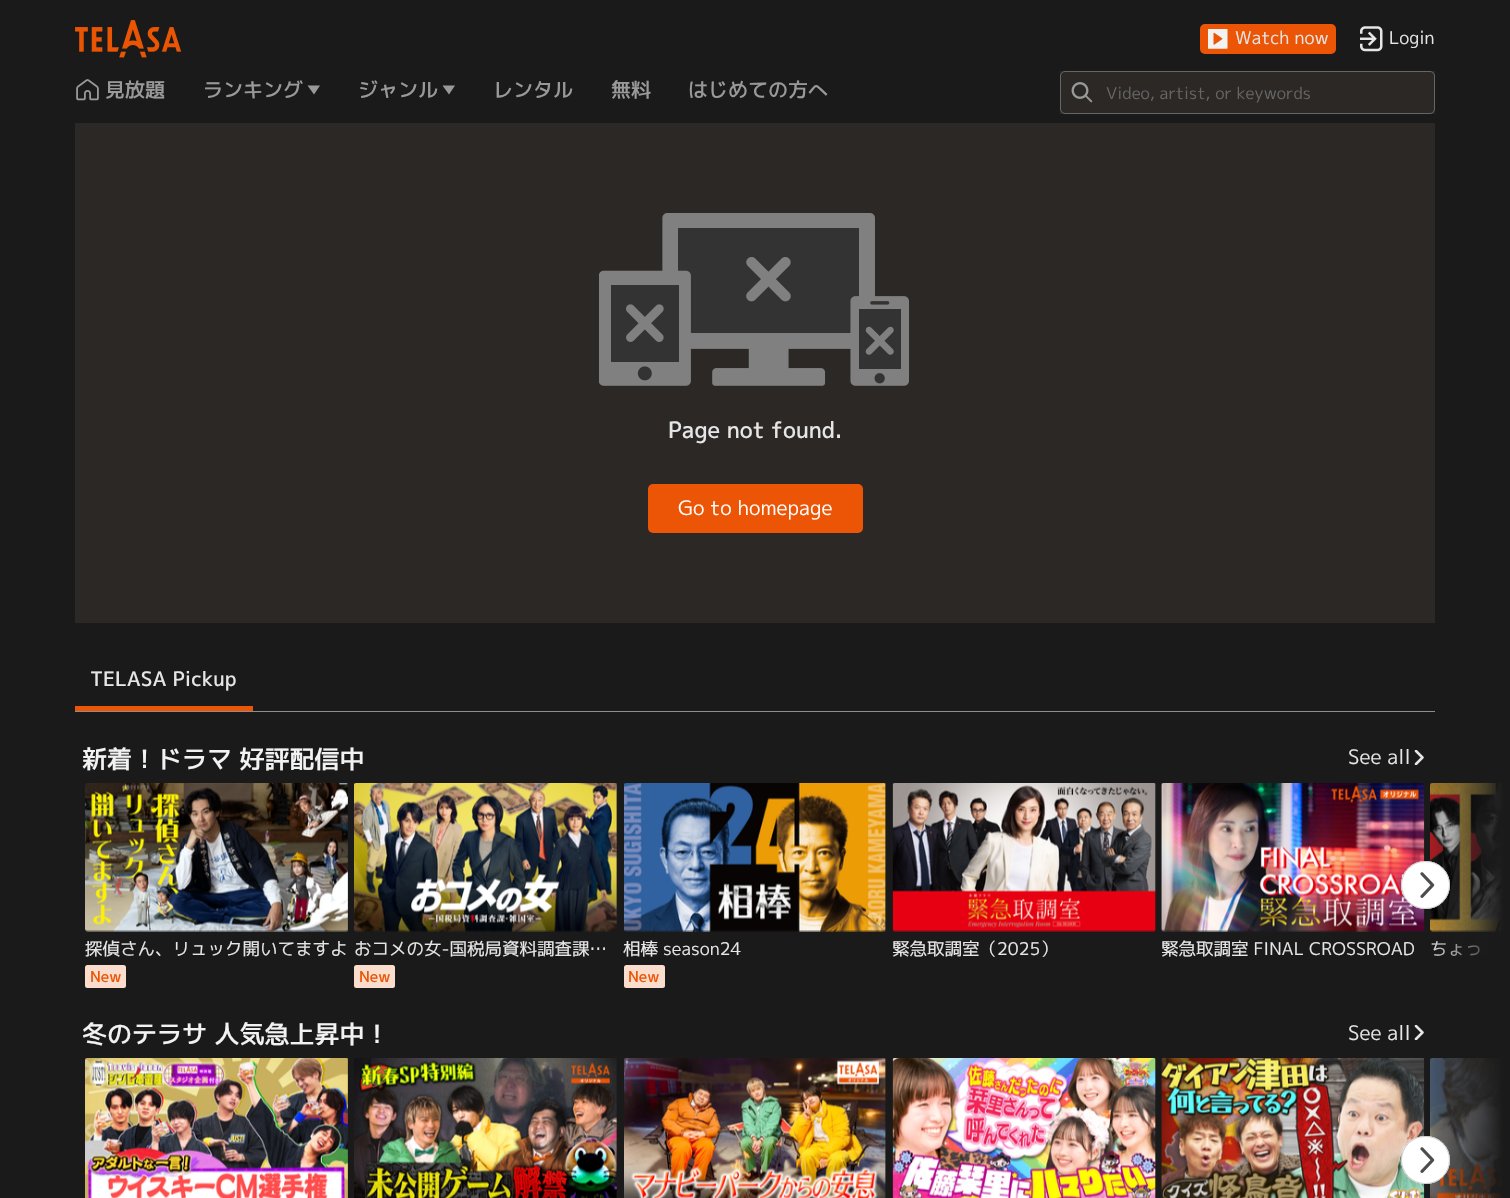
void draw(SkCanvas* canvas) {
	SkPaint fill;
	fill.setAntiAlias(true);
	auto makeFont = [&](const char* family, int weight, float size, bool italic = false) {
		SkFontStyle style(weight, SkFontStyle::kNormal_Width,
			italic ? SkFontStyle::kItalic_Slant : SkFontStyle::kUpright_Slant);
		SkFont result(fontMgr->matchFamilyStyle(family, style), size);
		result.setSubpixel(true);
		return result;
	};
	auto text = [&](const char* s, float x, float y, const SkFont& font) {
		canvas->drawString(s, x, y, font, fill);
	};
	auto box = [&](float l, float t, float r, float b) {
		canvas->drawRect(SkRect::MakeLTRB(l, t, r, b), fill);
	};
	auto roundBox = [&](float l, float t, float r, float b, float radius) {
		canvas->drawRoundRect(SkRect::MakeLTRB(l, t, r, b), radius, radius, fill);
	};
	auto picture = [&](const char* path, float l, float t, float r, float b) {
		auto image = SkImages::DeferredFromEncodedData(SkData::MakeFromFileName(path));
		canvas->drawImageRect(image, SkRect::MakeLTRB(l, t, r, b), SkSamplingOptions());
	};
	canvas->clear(0xFF1A1A1A);
	picture("image0.png", 75, 20, 181, 58);
	fill.setColor(0xFFEB5505);
	roundBox(1200, 24, 1336, 54, 5);
	picture("image1.png", 1208, 29, 1228, 49);
	picture("image2.png", 1360, 26, 1383, 52);
	picture("image3.png", 76, 79, 99, 101);
	fill.setColor(0xFF999999);
	canvas->drawPath(SkPathBuilder(SkPathFillType::kEvenOdd).moveTo(307.5f, 85.5f).lineTo(314, 94.5f).lineTo(320, 85.5f).close().detach(), fill);
	canvas->drawPath(SkPathBuilder(SkPathFillType::kEvenOdd).moveTo(442.5f, 85.5f).lineTo(449, 94.5f).lineTo(455, 85.5f).close().detach(), fill);
	fill.setColor(0xFF2B2826);
	box(1060, 71, 1435, 114);
	fill.setStyle(SkPaint::kStroke_Style);
	fill.setStrokeWidth(1);
	fill.setColor(0xFF666666);
	canvas->drawRoundRect(SkRect::MakeLTRB(1060.5f, 71.5f, 1434.5f, 113.5f), 4.5f, 4.5f, fill);
	picture("image4.png", 1071, 82, 1093, 103);
	fill.setStyle(SkPaint::kFill_Style);
	fill.setColor(0xFF2B2826);
	box(75, 123, 1435, 623);
	picture("image5.png", 599, 213, 909, 386);
	fill.setColor(0xFFEB5505);
	roundBox(648, 484, 863, 533, 5);
	fill.setColor(0xFF8D8D8D);
	box(75, 711, 1435, 712);
	fill.setColor(0xFFEB5505);
	box(75, 706, 253, 711);
	canvas->save();
	canvas->clipRect(SkRect::MakeLTRB(1413, 750, 1428, 765));
	fill.setStyle(SkPaint::kStroke_Style);
	fill.setStrokeWidth(2.5f);
	fill.setStrokeCap(SkPaint::kRound_Cap);
	fill.setStrokeJoin(SkPaint::kRound_Join);
	fill.setColor(0xFFE6E6E6);
	canvas->drawPath(SkPathBuilder().moveTo(1416, 751).lineTo(1422.5f, 757.5f).lineTo(1416, 764).detach(), fill);
	canvas->restore();
	picture("image7.png", 85, 783, 348, 932);
	fill.setStyle(SkPaint::kFill_Style);
	fill.setColor(0xFFFBDDCD);
	roundBox(85, 965, 126, 988, 2.5f);
	picture("image8.png", 354, 783, 617, 932);
	roundBox(354, 965, 395, 988, 2.5f);
	picture("image9.png", 624, 783, 886, 932);
	roundBox(624, 965, 665, 988, 2.5f);
	picture("image10.png", 892, 783, 1156, 932);
	picture("image11.png", 1161, 783, 1425, 932);
	picture("image12.png", 1430, 783, 1503, 932);
	canvas->save();
	canvas->clipRect(SkRect::MakeLTRB(1413, 1025, 1428, 1040));
	fill.setStyle(SkPaint::kStroke_Style);
	fill.setColor(0xFFE6E6E6);
	canvas->drawPath(SkPathBuilder().moveTo(1416, 1026).lineTo(1422.5f, 1032.5f).lineTo(1416, 1039).detach(), fill);
	canvas->restore();
	picture("image13.png", 85, 1058, 348, 1198);
	picture("image14.png", 354, 1058, 617, 1198);
	picture("image15.png", 624, 1058, 886, 1198);
	picture("image16.png", 892, 1058, 1156, 1198);
	picture("image17.png", 1161, 1058, 1425, 1198);
	picture("image18.png", 1430, 1058, 1503, 1198);
	fill.setStyle(SkPaint::kFill_Style);
	{
		const SkColor colors[] = {0xFF1A1A1A, 0x001A1A1A};
		const float stops[] = {0, 1};
		const SkPoint ends[] = {{1503, 1160}, {1428, 1160}};
		fill.setShader(SkGradientShader::MakeLinear(ends, colors, stops, 2, SkTileMode::kClamp));
		fill.setAlpha(255);
	}
	box(1430, 1058, 1503, 1198);
	fill.setShader(nullptr);
	fill.setColor(0xFFFFFFFF);
	roundBox(1401, 1136, 1450, 1184, 24);
	picture("image6.png", 1420, 1147, 1435, 1173);
	fill.setStyle(SkPaint::kStroke_Style);
	fill.setStrokeWidth(1);
	fill.setStrokeCap(SkPaint::kButt_Cap);
	fill.setStrokeJoin(SkPaint::kMiter_Join);
	fill.setColor(0xFFCCCCCC);
	canvas->drawRoundRect(SkRect::MakeLTRB(1401.5f, 1136.5f, 1449.5f, 1183.5f), 23.5f, 23.5f, fill);
	auto font1 = makeFont("M PLUS 1p", 400, 17.5f);
	fill.setStyle(SkPaint::kFill_Style);
	fill.setColor(0xFFE6E6E6);
	text("Watch now", 1235, 44, font1);
	text("Login", 1389, 44, font1);
	auto font2 = makeFont("M PLUS 1p", 500, 20);
	fill.setColor(0xFF999999);
	text("見放題", 105, 97, font2);
	text("ランキング", 203, 97, font2);
	text("ジャンル", 358, 97, font2);
	text("レンタル", 493, 97, font2);
	text("無料", 611, 97, font2);
	text("はじめての方へ", 688, 97, font2);
	auto font3 = makeFont("M PLUS 1p", 400, 16.25f);
	fill.setColor(0xFF666666);
	text("Video, artist, or keywords", 1106, 99, font3);
	auto font4 = makeFont("M PLUS 1p", 500, 22.5f);
	fill.setColor(0xFFE6E6E6);
	text("Page not found.", 668, 438, font4);
	auto font5 = makeFont("M PLUS 1p", 400, 20);
	fill.setColor(0xFFFFFFFF);
	text("Go to homepage", 678, 515, font5);
	fill.setColor(0xFFE6E6E6);
	text("TELASA Pickup", 90, 686, font2);
	auto font6 = makeFont("M PLUS 1p", 500, 25);
	fill.setColor(0xFFF2F2F2);
	text("新着！ドラマ 好評配信中", 82, 768, font6);
	fill.setColor(0xFFE6E6E6);
	text("See all", 1348, 764, font5);
	text("探偵さん、リュック開いてますよ", 85, 955, font1);
	auto font7 = makeFont("M PLUS 1p", 500, 15);
	fill.setColor(0xFFEB5506);
	text("New", 90, 982, font7);
	fill.setColor(0xFFE6E6E6);
	text("おコメの女-国税局資料調査課…", 354, 955, font1);
	fill.setColor(0xFFEB5506);
	text("New", 359, 982, font7);
	fill.setColor(0xFFE6E6E6);
	text("相棒 season24", 623, 955, font1);
	fill.setColor(0xFFEB5506);
	text("New", 628, 982, font7);
	fill.setColor(0xFFE6E6E6);
	text("緊急取調室（2025）", 892, 955, font1);
	text("緊急取調室 FINAL CROSSROAD", 1161, 955, font1);
	text("ちょっ", 1430, 955, font1);
	{
		const SkColor colors[] = {0xFF1A1A1A, 0x001A1A1A};
		const float stops[] = {0, 1};
		const SkPoint ends[] = {{1503, 885}, {1428, 885}};
		fill.setShader(SkGradientShader::MakeLinear(ends, colors, stops, 2, SkTileMode::kClamp));
		fill.setAlpha(255);
	}
	box(1430, 783, 1503, 956);
	fill.setShader(nullptr);
	fill.setColor(0xFFFFFFFF);
	roundBox(1401, 861, 1450, 909, 24);
	picture("image6.png", 1420, 872, 1435, 898);
	fill.setStyle(SkPaint::kStroke_Style);
	fill.setColor(0xFFCCCCCC);
	canvas->drawRoundRect(SkRect::MakeLTRB(1401.5f, 861.5f, 1449.5f, 908.5f), 23.5f, 23.5f, fill);
	fill.setStyle(SkPaint::kFill_Style);
	fill.setColor(0xFFF2F2F2);
	text("冬のテラサ 人気急上昇中！", 82, 1043, font6);
	fill.setColor(0xFFE6E6E6);
	text("See all", 1348, 1040, font5);
}
